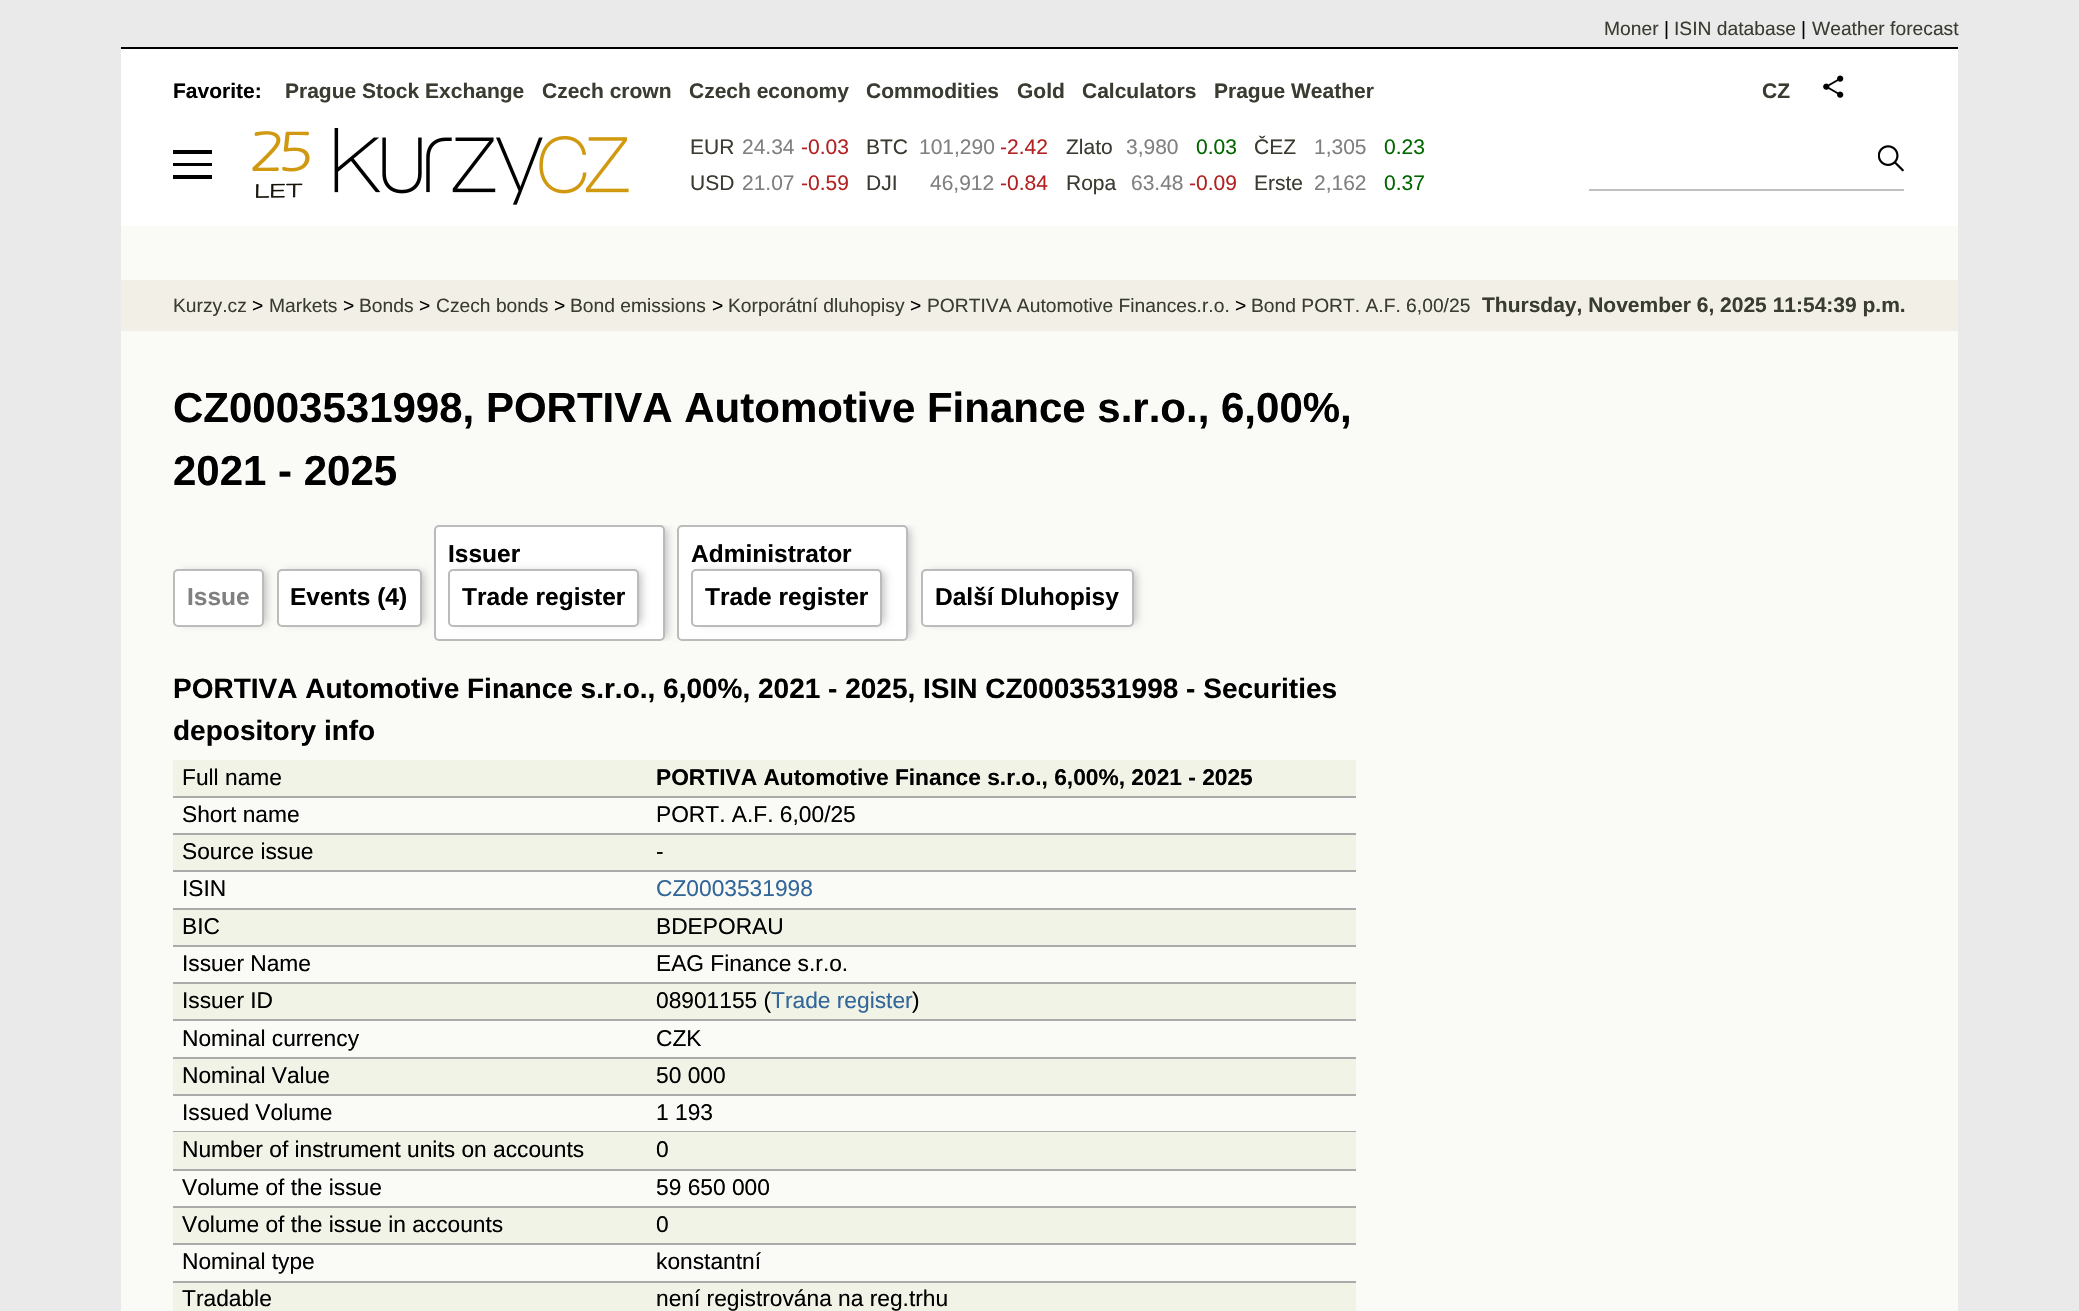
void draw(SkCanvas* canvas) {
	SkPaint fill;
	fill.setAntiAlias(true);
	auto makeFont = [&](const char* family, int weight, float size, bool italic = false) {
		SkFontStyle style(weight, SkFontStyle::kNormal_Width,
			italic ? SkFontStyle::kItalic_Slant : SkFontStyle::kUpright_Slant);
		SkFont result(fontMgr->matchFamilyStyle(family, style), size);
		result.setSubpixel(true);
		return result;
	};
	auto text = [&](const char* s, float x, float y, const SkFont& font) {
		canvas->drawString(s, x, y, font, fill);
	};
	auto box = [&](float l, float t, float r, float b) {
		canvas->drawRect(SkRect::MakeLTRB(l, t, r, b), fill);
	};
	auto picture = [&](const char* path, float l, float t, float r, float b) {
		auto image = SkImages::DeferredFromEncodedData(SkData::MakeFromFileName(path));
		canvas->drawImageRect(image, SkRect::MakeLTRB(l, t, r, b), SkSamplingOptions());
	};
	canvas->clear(0xFFEAEAEA);
	fill.setColor(0xFFFAFBF7);
	box(121, 226, 1958, 1311);
	fill.setColor(0xFF000000);
	box(121, 47, 1958, 49);
	fill.setColor(0xFFFFFFFF);
	box(121, 49, 1958, 226);
	picture("image0.png", 1823, 75, 1844, 98);
	fill.setColor(0xFF000000);
	box(173, 150, 212, 154);
	picture("image1.png", 252, 128, 629, 205);
	fill.setColor(0xFFC0C0C0);
	box(1589, 189, 1904, 191);
	picture("image2.png", 1878, 145, 1904, 172);
	fill.setColor(0xFF000000);
	box(173, 163, 212, 166);
	box(173, 175, 212, 179);
	fill.setColor(0xFFF2EFE6);
	box(121, 280, 1958, 331);
	fill.setColor(0xFFBBBBBB);
	fill.setMaskFilter(SkMaskFilter::MakeBlur(kNormal_SkBlurStyle, 4.5f));
	canvas->drawRoundRect(SkRect::MakeLTRB(182, 572, 266, 623), 2, 2, fill);
	fill.setMaskFilter(nullptr);
	fill.setColor(0xFFFFFFFF);
	canvas->drawRoundRect(SkRect::MakeLTRB(174, 570, 263, 626), 4, 4, fill);
	fill.setStyle(SkPaint::kStroke_Style);
	fill.setStrokeWidth(2);
	fill.setColor(0xFFBBBBBB);
	canvas->drawRoundRect(SkRect::MakeLTRB(174, 570, 263, 626), 4, 4, fill);
	fill.setStyle(SkPaint::kFill_Style);
	fill.setMaskFilter(SkMaskFilter::MakeBlur(kNormal_SkBlurStyle, 4.5f));
	canvas->drawRoundRect(SkRect::MakeLTRB(285, 572, 424, 623), 2, 2, fill);
	fill.setMaskFilter(nullptr);
	fill.setColor(0xFFFFFFFF);
	canvas->drawRoundRect(SkRect::MakeLTRB(278, 570, 421, 626), 4, 4, fill);
	fill.setStyle(SkPaint::kStroke_Style);
	fill.setColor(0xFFBBBBBB);
	canvas->drawRoundRect(SkRect::MakeLTRB(278, 570, 421, 626), 4, 4, fill);
	canvas->save();
	canvas->clipRect(SkRect::MakeLTRB(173, 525, 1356, 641));
	fill.setStyle(SkPaint::kFill_Style);
	fill.setMaskFilter(SkMaskFilter::MakeBlur(kNormal_SkBlurStyle, 4.5f));
	canvas->drawRoundRect(SkRect::MakeLTRB(443, 529, 667, 637), 2, 2, fill);
	fill.setMaskFilter(nullptr);
	canvas->restore();
	fill.setColor(0xFFFFFFFF);
	canvas->drawRoundRect(SkRect::MakeLTRB(435, 526, 664, 640), 4, 4, fill);
	fill.setStyle(SkPaint::kStroke_Style);
	fill.setColor(0xFFBBBBBB);
	canvas->drawRoundRect(SkRect::MakeLTRB(435, 526, 664, 640), 4, 4, fill);
	fill.setStyle(SkPaint::kFill_Style);
	fill.setMaskFilter(SkMaskFilter::MakeBlur(kNormal_SkBlurStyle, 4.5f));
	canvas->drawRoundRect(SkRect::MakeLTRB(457, 572, 641, 623), 2, 2, fill);
	fill.setMaskFilter(nullptr);
	fill.setColor(0xFFFFFFFF);
	canvas->drawRoundRect(SkRect::MakeLTRB(449, 570, 638, 626), 4, 4, fill);
	fill.setStyle(SkPaint::kStroke_Style);
	fill.setColor(0xFFBBBBBB);
	canvas->drawRoundRect(SkRect::MakeLTRB(449, 570, 638, 626), 4, 4, fill);
	canvas->save();
	canvas->clipRect(SkRect::MakeLTRB(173, 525, 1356, 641));
	fill.setStyle(SkPaint::kFill_Style);
	fill.setMaskFilter(SkMaskFilter::MakeBlur(kNormal_SkBlurStyle, 4.5f));
	canvas->drawRoundRect(SkRect::MakeLTRB(686, 529, 910, 637), 2, 2, fill);
	fill.setMaskFilter(nullptr);
	canvas->restore();
	fill.setColor(0xFFFFFFFF);
	canvas->drawRoundRect(SkRect::MakeLTRB(678, 526, 907, 640), 4, 4, fill);
	fill.setStyle(SkPaint::kStroke_Style);
	fill.setColor(0xFFBBBBBB);
	canvas->drawRoundRect(SkRect::MakeLTRB(678, 526, 907, 640), 4, 4, fill);
	fill.setStyle(SkPaint::kFill_Style);
	fill.setMaskFilter(SkMaskFilter::MakeBlur(kNormal_SkBlurStyle, 4.5f));
	canvas->drawRoundRect(SkRect::MakeLTRB(700, 572, 884, 623), 2, 2, fill);
	fill.setMaskFilter(nullptr);
	fill.setColor(0xFFFFFFFF);
	canvas->drawRoundRect(SkRect::MakeLTRB(692, 570, 881, 626), 4, 4, fill);
	fill.setStyle(SkPaint::kStroke_Style);
	fill.setColor(0xFFBBBBBB);
	canvas->drawRoundRect(SkRect::MakeLTRB(692, 570, 881, 626), 4, 4, fill);
	fill.setStyle(SkPaint::kFill_Style);
	fill.setMaskFilter(SkMaskFilter::MakeBlur(kNormal_SkBlurStyle, 4.5f));
	canvas->drawRoundRect(SkRect::MakeLTRB(929, 572, 1136, 623), 2, 2, fill);
	fill.setMaskFilter(nullptr);
	fill.setColor(0xFFFFFFFF);
	canvas->drawRoundRect(SkRect::MakeLTRB(922, 570, 1133, 626), 4, 4, fill);
	fill.setStyle(SkPaint::kStroke_Style);
	fill.setColor(0xFFBBBBBB);
	canvas->drawRoundRect(SkRect::MakeLTRB(922, 570, 1133, 626), 4, 4, fill);
	fill.setStyle(SkPaint::kFill_Style);
	fill.setColor(0xFFF1F3E6);
	box(173, 760, 1356, 796);
	fill.setColor(0xFFAAAAAA);
	box(173, 796, 1356, 798);
	box(173, 833, 1356, 835);
	fill.setColor(0xFFF1F3E6);
	box(173, 835, 1356, 870);
	fill.setColor(0xFFAAAAAA);
	box(173, 870, 1356, 872);
	box(173, 908, 1356, 910);
	fill.setColor(0xFFF1F3E6);
	box(173, 910, 1356, 945);
	fill.setColor(0xFFAAAAAA);
	box(173, 945, 1356, 947);
	box(173, 982, 1356, 984);
	fill.setColor(0xFFF1F3E6);
	box(173, 984, 1356, 1019);
	fill.setColor(0xFFAAAAAA);
	box(173, 1019, 1356, 1021);
	box(173, 1057, 1356, 1059);
	fill.setColor(0xFFF1F3E6);
	box(173, 1059, 1356, 1094);
	fill.setColor(0xFFAAAAAA);
	box(173, 1094, 1356, 1096);
	box(173, 1131, 1356, 1132);
	fill.setColor(0xFFF1F3E6);
	box(173, 1132, 1356, 1169);
	fill.setColor(0xFFAAAAAA);
	box(173, 1169, 1356, 1171);
	box(173, 1206, 1356, 1208);
	fill.setColor(0xFFF1F3E6);
	box(173, 1208, 1356, 1243);
	fill.setColor(0xFFAAAAAA);
	box(173, 1243, 1356, 1245);
	box(173, 1281, 1356, 1283);
	fill.setColor(0xFFF1F3E6);
	box(173, 1283, 1356, 1311);
	auto font1 = makeFont("Liberation Sans", 400, 19.25f);
	fill.setColor(0xFF393C31);
	text("Moner", 1604, 35, font1);
	fill.setColor(0xFF000000);
	text("|", 1664, 35, font1);
	fill.setColor(0xFF393C31);
	text("ISIN database", 1674, 35, font1);
	fill.setColor(0xFF000000);
	text("|", 1801, 35, font1);
	fill.setColor(0xFF393C31);
	text("Weather forecast", 1812, 35, font1);
	auto font2 = makeFont("Liberation Sans", 700, 21);
	fill.setColor(0xFF000000);
	text("Favorite:", 173, 98, font2);
	fill.setColor(0xFF393C31);
	text("Prague Stock Exchange", 285, 98, font2);
	text("Czech crown", 542, 98, font2);
	text("Czech economy", 689, 98, font2);
	text("Commodities", 866, 98, font2);
	text("Gold", 1017, 98, font2);
	text("Calculators", 1082, 98, font2);
	text("Prague Weather", 1214, 98, font2);
	text("CZ", 1762, 98, font2);
	auto font3 = makeFont("Liberation Sans", 400, 21);
	text("EUR", 690, 154, font3);
	fill.setColor(0xFF808080);
	text("24.34", 742, 154, font3);
	fill.setColor(0xFFB22222);
	text("-0.03", 801, 154, font3);
	fill.setColor(0xFF393C31);
	text("BTC", 866, 154, font3);
	fill.setColor(0xFF808080);
	text("101,290", 919, 154, font3);
	fill.setColor(0xFFB22222);
	text("-2.42", 1000, 154, font3);
	fill.setColor(0xFF393C31);
	text("Zlato", 1066, 154, font3);
	fill.setColor(0xFF808080);
	text("3,980", 1126, 154, font3);
	fill.setColor(0xFF006600);
	text("0.03", 1196, 154, font3);
	fill.setColor(0xFF393C31);
	text("ČEZ", 1254, 154, font3);
	fill.setColor(0xFF808080);
	text("1,305", 1314, 154, font3);
	fill.setColor(0xFF006600);
	text("0.23", 1384, 154, font3);
	fill.setColor(0xFF393C31);
	text("USD", 690, 190, font3);
	fill.setColor(0xFF808080);
	text("21.07", 742, 190, font3);
	fill.setColor(0xFFB22222);
	text("-0.59", 801, 190, font3);
	fill.setColor(0xFF393C31);
	text("DJI", 866, 190, font3);
	fill.setColor(0xFF808080);
	text("46,912", 930, 190, font3);
	fill.setColor(0xFFB22222);
	text("-0.84", 1000, 190, font3);
	fill.setColor(0xFF393C31);
	text("Ropa", 1066, 190, font3);
	fill.setColor(0xFF808080);
	text("63.48", 1131, 190, font3);
	fill.setColor(0xFFB22222);
	text("-0.09", 1189, 190, font3);
	fill.setColor(0xFF393C31);
	text("Erste", 1254, 190, font3);
	fill.setColor(0xFF808080);
	text("2,162", 1314, 190, font3);
	fill.setColor(0xFF006600);
	text("0.37", 1384, 190, font3);
	fill.setColor(0xFF393C31);
	text("Kurzy.cz", 173, 312, font1);
	fill.setColor(0xFF000000);
	text(">", 252, 312, font1);
	fill.setColor(0xFF393C31);
	text("Markets", 269, 312, font1);
	fill.setColor(0xFF000000);
	text(">", 343, 312, font1);
	fill.setColor(0xFF393C31);
	text("Bonds", 359, 312, font1);
	fill.setColor(0xFF000000);
	text(">", 419, 312, font1);
	fill.setColor(0xFF393C31);
	text("Czech bonds", 436, 312, font1);
	fill.setColor(0xFF000000);
	text(">", 554, 312, font1);
	fill.setColor(0xFF393C31);
	text("Bond emissions", 570, 312, font1);
	fill.setColor(0xFF000000);
	text(">", 712, 312, font1);
	fill.setColor(0xFF393C31);
	text("Korporátní dluhopisy", 728, 312, font1);
	fill.setColor(0xFF000000);
	text(">", 910, 312, font1);
	fill.setColor(0xFF393C31);
	text("PORTIVA Automotive Finances.r.o.", 927, 312, font1);
	fill.setColor(0xFF000000);
	text(">", 1235, 312, font1);
	fill.setColor(0xFF393C31);
	text("Bond PORT. A.F. 6,00/25", 1251, 312, font1);
	text("Thursday, November 6, 2025 11:54:39 p.m.", 1482, 312, font2);
	auto font4 = makeFont("Liberation Sans", 700, 42);
	fill.setColor(0xFF000000);
	text("CZ0003531998, PORTIVA Automotive Finance s.r.o., 6,00%,", 173, 422, font4);
	text("2021 - 2025", 173, 485, font4);
	auto font5 = makeFont("Liberation Sans", 700, 24.5f);
	fill.setColor(0xFF808080);
	text("Issue", 187, 605, font5);
	fill.setColor(0xFF000000);
	text("Events (4)", 290, 605, font5);
	text("Issuer", 448, 562, font5);
	text("Trade register", 462, 605, font5);
	text("Administrator", 691, 562, font5);
	text("Trade register", 705, 605, font5);
	text("Další Dluhopisy", 935, 605, font5);
	auto font6 = makeFont("Liberation Sans", 700, 28);
	text("PORTIVA Automotive Finance s.r.o., 6,00%, 2021 - 2025, ISIN CZ0003531998 - Securities", 173, 698, font6);
	text("depository info", 173, 740, font6);
	auto font7 = makeFont("Liberation Sans", 400, 22.75f);
	text("Full name", 182, 785, font7);
	auto font8 = makeFont("Liberation Sans", 700, 22.75f);
	text("PORTIVA Automotive Finance s.r.o., 6,00%, 2021 - 2025", 656, 785, font8);
	text("Short name", 182, 822, font7);
	text("PORT. A.F. 6,00/25", 656, 822, font7);
	text("Source issue", 182, 859, font7);
	text("-", 656, 859, font7);
	text("ISIN", 182, 896, font7);
	fill.setColor(0xFF336699);
	text("CZ0003531998", 656, 896, font7);
	fill.setColor(0xFF000000);
	text("BIC", 182, 934, font7);
	text("BDEPORAU", 656, 934, font7);
	text("Issuer Name", 182, 971, font7);
	text("EAG Finance s.r.o.", 656, 971, font7);
	text("Issuer ID", 182, 1008, font7);
	text("08901155 (", 656, 1008, font7);
	fill.setColor(0xFF336699);
	text("Trade register", 771, 1008, font7);
	fill.setColor(0xFF000000);
	text(")", 912, 1008, font7);
	text("Nominal currency", 182, 1046, font7);
	text("CZK", 656, 1046, font7);
	text("Nominal Value", 182, 1083, font7);
	text("50 000", 656, 1083, font7);
	text("Issued Volume", 182, 1120, font7);
	text("1 193", 656, 1120, font7);
	text("Number of instrument units on accounts", 182, 1157, font7);
	text("0", 656, 1157, font7);
	text("Volume of the issue", 182, 1195, font7);
	text("59 650 000", 656, 1195, font7);
	text("Volume of the issue in accounts", 182, 1232, font7);
	text("0", 656, 1232, font7);
	text("Nominal type", 182, 1269, font7);
	text("konstantní", 656, 1269, font7);
	text("Tradable", 182, 1306, font7);
	text("není registrována na reg.trhu", 656, 1306, font7);
}
